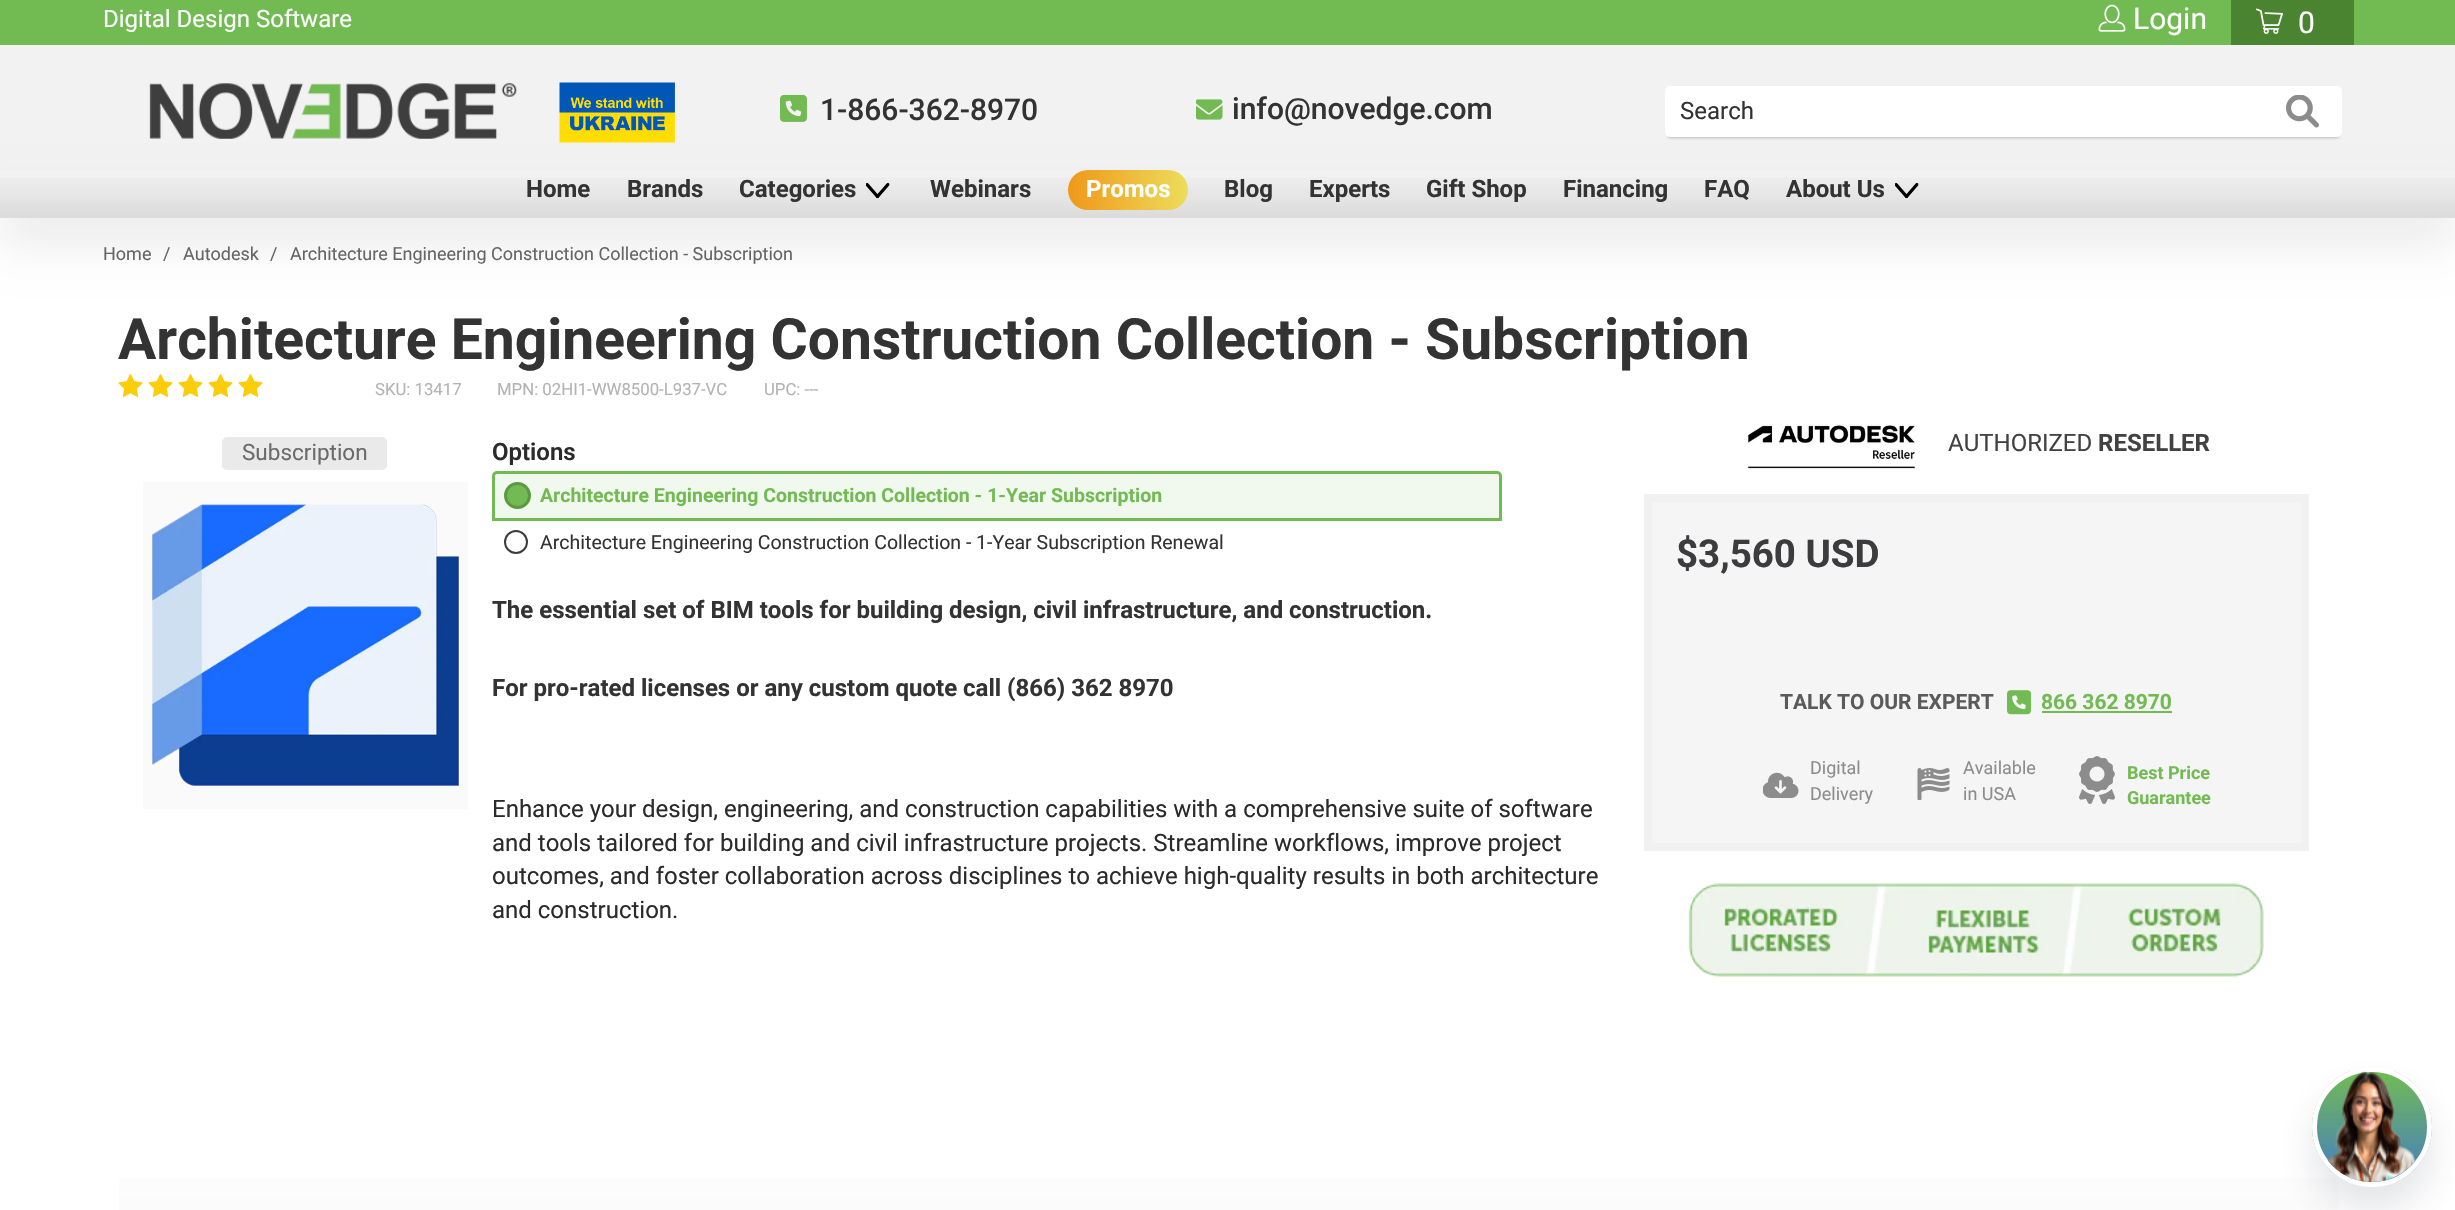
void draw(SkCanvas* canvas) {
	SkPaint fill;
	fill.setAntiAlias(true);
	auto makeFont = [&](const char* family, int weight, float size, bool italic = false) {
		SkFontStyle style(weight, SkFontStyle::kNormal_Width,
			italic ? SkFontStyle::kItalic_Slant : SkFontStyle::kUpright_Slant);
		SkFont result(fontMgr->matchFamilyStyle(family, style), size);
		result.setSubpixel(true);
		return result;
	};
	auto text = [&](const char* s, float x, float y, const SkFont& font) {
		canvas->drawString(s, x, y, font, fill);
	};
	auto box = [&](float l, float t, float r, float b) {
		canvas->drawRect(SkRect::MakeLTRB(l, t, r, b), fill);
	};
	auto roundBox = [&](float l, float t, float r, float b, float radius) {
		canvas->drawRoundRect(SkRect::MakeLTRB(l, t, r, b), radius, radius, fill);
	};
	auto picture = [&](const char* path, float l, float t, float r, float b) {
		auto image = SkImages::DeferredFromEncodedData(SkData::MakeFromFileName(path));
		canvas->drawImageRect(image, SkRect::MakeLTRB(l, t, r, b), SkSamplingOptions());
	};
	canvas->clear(0xFFFFFFFF);
	fill.setColor(0xFF72BB52);
	box(0, 0, 2455, 45);
	picture("image0.png", 2098, 4, 2126, 32);
	fill.setColor(0xFF4A8430);
	box(2231, 0, 2354, 45);
	picture("image1.png", 2256, 8, 2283, 34);
	fill.setColor(0xFFF2F2F2);
	box(0, 45, 2455, 218);
	canvas->save();
	canvas->clipPath(SkPathBuilder(SkPathFillType::kEvenOdd).moveTo(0, 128).lineTo(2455, 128).lineTo(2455, 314).lineTo(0, 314).close().moveTo(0, 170).lineTo(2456, 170).lineTo(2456, 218).lineTo(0, 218).close().detach(), true);
	fill.setColor(0x14000000);
	fill.setMaskFilter(SkMaskFilter::MakeBlur(kNormal_SkBlurStyle, 22.5f));
	canvas->drawRect(SkRect::MakeLTRB(0, 197, 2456, 245), fill);
	fill.setMaskFilter(nullptr);
	canvas->restore();
	picture("image2.png", 149, 83, 517, 139);
	picture("image3.png", 559, 82, 675, 143);
	picture("image4.png", 780, 94, 807, 122);
	picture("image5.png", 1196, 99, 1223, 120);
	fill.setColor(0x38000000);
	fill.setMaskFilter(SkMaskFilter::MakeBlur(kNormal_SkBlurStyle, 1.5f));
	canvas->drawRoundRect(SkRect::MakeLTRB(1668, 93, 2339, 138), 1.5f, 1.5f, fill);
	fill.setMaskFilter(nullptr);
	fill.setColor(0xFFFFFFFF);
	roundBox(1665, 86, 2342, 137, 5);
	picture("image6.png", 2286, 95, 2319, 128);
	{
		const SkColor colors[] = {0x70555555, 0x00555555};
		const float stops[] = {0, 1};
		const SkPoint ends[] = {{1228, 318}, {1228, 170}};
		fill.setShader(SkGradientShader::MakeLinear(ends, colors, stops, 2, SkTileMode::kClamp));
		fill.setAlpha(255);
	}
	box(0, 177, 2455, 218);
	picture("image7.png", 866, 183, 890, 198);
	{
		const SkColor colors[] = {0xFFF09819, 0xFFEDDE5D, 0xFFF09819};
		const float stops[] = {0, 0.51f, 1};
		const SkPoint ends[] = {{1068, 189}, {1308, 189}};
		fill.setShader(SkGradientShader::MakeLinear(ends, colors, stops, 3, SkTileMode::kClamp));
		fill.setAlpha(255);
	}
	roundBox(1068, 170, 1188, 210, 20);
	picture("image7.png", 1895, 183, 1919, 198);
	picture("image8.png", 118, 374, 143, 397);
	picture("image8.png", 148, 374, 173, 397);
	picture("image8.png", 178, 374, 203, 397);
	picture("image8.png", 208, 374, 233, 397);
	picture("image8.png", 238, 374, 263, 397);
	fill.setShader(nullptr);
	fill.setColor(0xFFEAEAEA);
	roundBox(222, 437, 387, 470, 5);
	fill.setColor(0xFFF1F8EE);
	canvas->drawPath(SkPathBuilder().moveTo(497, 472.5f).lineTo(1497, 472.5f).cubicTo(1499, 472.5f, 1500.5f, 474, 1500.5f, 476).lineTo(1500.5f, 519.5f).lineTo(493.5f, 519.5f).lineTo(493.5f, 476).cubicTo(493.5f, 474, 495, 472.5f, 497, 472.5f).close().detach(), fill);
	fill.setStyle(SkPaint::kStroke_Style);
	fill.setStrokeWidth(3);
	fill.setColor(0xFF72BB52);
	canvas->drawPath(SkPathBuilder().moveTo(497, 472.5f).lineTo(1497, 472.5f).cubicTo(1499, 472.5f, 1500.5f, 474, 1500.5f, 476).lineTo(1500.5f, 519.5f).lineTo(493.5f, 519.5f).lineTo(493.5f, 476).cubicTo(493.5f, 474, 495, 472.5f, 497, 472.5f).close().detach(), fill);
	fill.setStyle(SkPaint::kFill_Style);
	canvas->drawCircle(517.5f, 495.5f, 12, fill);
	fill.setStyle(SkPaint::kStroke_Style);
	fill.setColor(0xFF5C9A41);
	canvas->drawCircle(517.5f, 495.5f, 12, fill);
	fill.setStrokeWidth(2);
	fill.setColor(0xFF3C3C3C);
	canvas->drawCircle(516, 542, 11, fill);
	fill.setStyle(SkPaint::kFill_Style);
	fill.setColor(0xFFFAFAFA);
	box(143, 482, 468, 809);
	picture("image9.png", 152, 504, 459, 786);
	picture("image10.png", 1746, 424, 1916, 469);
	fill.setColor(0xFFF5F5F5);
	canvas->drawRect(SkRect::MakeLTRB(1648, 498, 2305, 847), fill);
	fill.setStyle(SkPaint::kStroke_Style);
	fill.setStrokeWidth(8);
	fill.setColor(0xFFF1F1F1);
	canvas->drawRect(SkRect::MakeLTRB(1648, 498, 2305, 847), fill);
	picture("image11.png", 2007, 690, 2031, 715);
	fill.setStyle(SkPaint::kFill_Style);
	fill.setColor(0xFF72BB52);
	box(2042, 711, 2172, 713);
	picture("image12.png", 1763, 772, 1799, 798);
	picture("image13.png", 1917, 768, 1950, 800);
	picture("image14.png", 2079, 756, 2115, 804);
	picture("image15.png", 1688, 883, 2264, 977);
	{
		const SkColor colors[] = {0xFFE4E4E4, 0xFFFFFFFF};
		const float stops[] = {0, 1};
		const SkPoint ends[] = {{1229, 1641}, {1229, 1131}};
		fill.setShader(SkGradientShader::MakeLinear(ends, colors, stops, 2, SkTileMode::kClamp));
		fill.setAlpha(255);
	}
	box(119, 1178, 2339, 1210);
	fill.setShader(nullptr);
	fill.setColor(0x29545F6F);
	fill.setMaskFilter(SkMaskFilter::MakeBlur(kNormal_SkBlurStyle, 18));
	canvas->drawRoundRect(SkRect::MakeLTRB(2312, 1091, 2432, 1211), 60, 60, fill);
	fill.setMaskFilter(nullptr);
	canvas->save();
	canvas->clipPath(SkPathBuilder().moveTo(2372, 1067).cubicTo(2405, 1067, 2432, 1094, 2432, 1127).cubicTo(2432, 1160, 2405, 1187, 2372, 1187).cubicTo(2339, 1187, 2312, 1160, 2312, 1127).cubicTo(2312, 1094, 2339, 1067, 2372, 1067).close().detach(), true);
	{
		const SkColor colors[] = {0xFF72BB52, 0xFF447CC5};
		const float stops[] = {0, 1};
		const SkPoint ends[] = {{2372, 1071}, {2372, 1182}};
		fill.setShader(SkGradientShader::MakeLinear(ends, colors, stops, 2, SkTileMode::kClamp));
		fill.setAlpha(255);
	}
	box(2312, 1071, 2432, 1182);
	canvas->restore();
	fill.setStyle(SkPaint::kStroke_Style);
	fill.setStrokeWidth(5);
	fill.setShader(nullptr);
	fill.setColor(0xFFFFFFFF);
	canvas->drawCircle(2372, 1127, 57.5f, fill);
	picture("image16.png", 2327, 1071, 2416, 1182);
	auto font1 = makeFont("Roboto", 400, 24);
	fill.setStyle(SkPaint::kFill_Style);
	text("Digital Design Software", 103, 27, font1);
	auto font2 = makeFont("Roboto", 400, 30);
	text("Login", 2133, 29, font2);
	text("0", 2298, 33, font2);
	auto font3 = makeFont("Roboto", 500, 30);
	fill.setColor(0xFF333333);
	text("1-866-362-8970", 820, 120, font3);
	text("info@novedge.com", 1232, 119, font3);
	text("Search", 1680, 119, font1);
	auto font4 = makeFont("Roboto", 700, 24);
	text("Home", 526, 197, font4);
	text("Brands", 627, 197, font4);
	text("Categories", 739, 197, font4);
	text("Webinars", 930, 197, font4);
	fill.setColor(0xFFFFFFFF);
	text("Promos", 1086, 197, font4);
	fill.setColor(0xFF333333);
	text("Blog", 1224, 197, font4);
	text("Experts", 1309, 197, font4);
	text("Gift Shop", 1426, 197, font4);
	text("Financing", 1563, 197, font4);
	text("FAQ", 1704, 197, font4);
	text("About Us", 1786, 197, font4);
	auto font5 = makeFont("Roboto", 400, 18);
	fill.setColor(0xFF656565);
	text("Home", 103, 260, font5);
	text("/", 163, 260, font5);
	text("Autodesk", 183, 260, font5);
	text("/", 270, 260, font5);
	text("Architecture Engineering Construction Collection - Subscription", 290, 260, font5);
	auto font6 = makeFont("Roboto", 700, 57);
	fill.setColor(0xFF333333);
	text("Architecture Engineering Construction Collection - Subscription", 118, 359, font6);
	auto font7 = makeFont("Roboto", 400, 16.75f);
	fill.setColor(0xFFB3B3B3);
	text("SKU: 13417", 375, 395, font7);
	text("MPN: 02HI1-WW8500-L937-VC", 497, 395, font7);
	text("UPC: ---", 764, 395, font7);
	auto font8 = makeFont("Roboto", 400, 22.5f);
	fill.setColor(0xFF6B6B6B);
	text("Subscription", 242, 460, font8);
	auto font9 = makeFont("Roboto", 600, 24);
	fill.setColor(0xFF2B2B2B);
	text("Options", 492, 460, font9);
	auto font10 = makeFont("Roboto", 700, 19.5f);
	fill.setColor(0xFF72BB52);
	text("Architecture Engineering Construction Collection - 1-Year Subscription", 540, 502, font10);
	auto font11 = makeFont("Roboto", 400, 19.5f);
	fill.setColor(0xFF333333);
	text("Architecture Engineering Construction Collection - 1-Year Subscription Renewal", 540, 549, font11);
	text("The essential set of BIM tools for building design, civil infrastructure, and construction.", 492, 618, font4);
	text("For pro-rated licenses or any custom quote call (866) 362 8970", 492, 696, font4);
	fill.setColor(0xFF2B2B2B);
	text("Enhance your design, engineering, and construction capabilities with a comprehensive suite of software", 492, 817, font1);
	text("and tools tailored for building and civil infrastructure projects. Streamline workflows, improve project", 492, 851, font1);
	text("outcomes, and foster collaboration across disciplines to achieve high-quality results in both architecture", 492, 884, font1);
	text("and construction.", 492, 918, font1);
	fill.setColor(0xFF424242);
	text("AUTHORIZED", 1948, 451, font1);
	text("RESELLER", 2098, 451, font4);
	auto font12 = makeFont("Roboto", 700, 38.5f);
	fill.setColor(0xFF3C3B3E);
	text("$3,560 USD", 1676, 567, font12);
	auto font13 = makeFont("Roboto", 700, 21);
	fill.setColor(0xFF5B5B5B);
	text("TALK TO OUR EXPERT", 1780, 709, font13);
	fill.setColor(0xFF72BB52);
	text("866 362 8970", 2041, 709, font13);
	fill.setColor(0xFF8C8C8C);
	text("Digital", 1810, 774, font5);
	text("Delivery", 1810, 800, font5);
	text("Available", 1963, 774, font5);
	text("in USA", 1963, 800, font5);
	auto font14 = makeFont("Roboto", 700, 18);
	fill.setColor(0xFF72BB52);
	text("Best Price", 2127, 779, font14);
	text("Guarantee", 2127, 804, font14);
}
